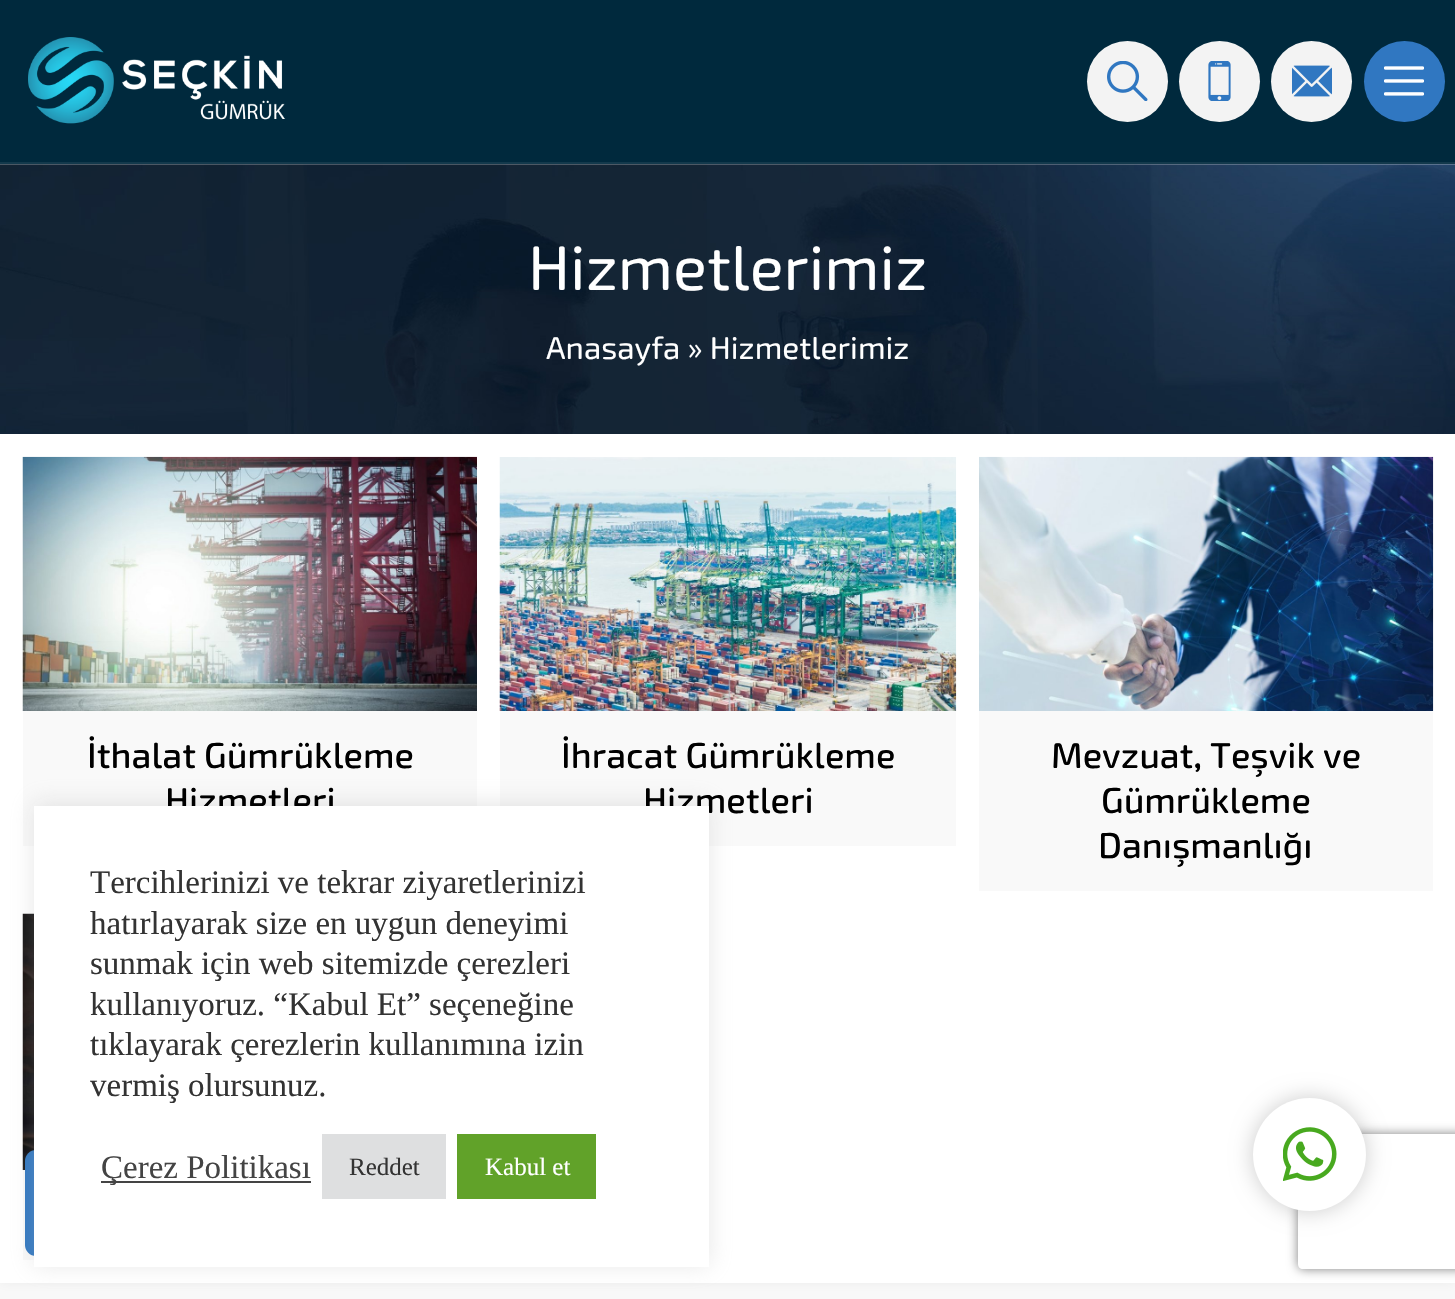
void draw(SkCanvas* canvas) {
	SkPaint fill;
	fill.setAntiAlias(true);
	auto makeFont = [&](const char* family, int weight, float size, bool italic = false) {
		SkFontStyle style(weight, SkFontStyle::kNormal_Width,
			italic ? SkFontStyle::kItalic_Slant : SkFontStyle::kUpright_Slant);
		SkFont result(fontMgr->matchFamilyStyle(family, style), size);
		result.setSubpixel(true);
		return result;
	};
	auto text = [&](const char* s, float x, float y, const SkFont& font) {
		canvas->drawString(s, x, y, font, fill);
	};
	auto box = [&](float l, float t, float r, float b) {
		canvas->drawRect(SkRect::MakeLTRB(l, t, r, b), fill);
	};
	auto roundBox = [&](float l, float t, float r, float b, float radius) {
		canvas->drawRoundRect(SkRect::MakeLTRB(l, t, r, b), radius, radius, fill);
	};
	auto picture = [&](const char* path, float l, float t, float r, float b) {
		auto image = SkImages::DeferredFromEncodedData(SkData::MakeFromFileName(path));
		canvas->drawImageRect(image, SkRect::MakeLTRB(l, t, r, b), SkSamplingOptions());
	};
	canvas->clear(0xFFF9F9F9);
	fill.setColor(0xFF00293D);
	box(0, 0, 1455, 162);
	picture("image0.png", 28, 37, 286, 124);
	fill.setColor(0xFFF3F3F3);
	canvas->drawCircle(1127.5f, 81.5f, 40.5f, fill);
	picture("image1.png", 1107, 61, 1148, 101);
	canvas->drawCircle(1219.5f, 81.5f, 40.5f, fill);
	picture("image2.png", 1208, 61, 1231, 101);
	canvas->drawCircle(1311.5f, 81.5f, 40.5f, fill);
	picture("image3.png", 1292, 65, 1332, 97);
	fill.setColor(0xFF3077C1);
	canvas->drawCircle(1404.5f, 81.5f, 40.5f, fill);
	picture("image4.png", 1384, 66, 1424, 96);
	fill.setColor(0xFF13394C);
	box(0, 162, 1455, 164);
	picture("image5.png", 0, 164, 1455, 434);
	canvas->save();
	canvas->clipRect(SkRect::MakeLTRB(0, 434, 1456, 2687));
	fill.setColor(0x0D000000);
	fill.setMaskFilter(SkMaskFilter::MakeBlur(kNormal_SkBlurStyle, 5.5f));
	canvas->drawRect(SkRect::MakeLTRB(0, 434, 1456, 1283), fill);
	fill.setMaskFilter(nullptr);
	canvas->restore();
	fill.setColor(0xFFFFFFFF);
	box(0, 434, 1455, 1283);
	fill.setColor(0xFFF9F9F9);
	box(23, 711, 477, 846);
	picture("image6.png", 22, 456, 477, 711);
	box(500, 711, 956, 846);
	picture("image7.png", 499, 457, 957, 711);
	box(979, 711, 1433, 891);
	picture("image8.png", 979, 456, 1434, 711);
	box(23, 1170, 34, 1260);
	picture("image9.png", 22, 913, 34, 1170);
	fill.setColor(0xFF3077C1);
	roundBox(25, 1150, 315, 1256, 11);
	fill.setColor(0x4DACABAB);
	fill.setMaskFilter(SkMaskFilter::MakeBlur(kNormal_SkBlurStyle, 11));
	canvas->drawRect(SkRect::MakeLTRB(34, 803, 709, 1265), fill);
	fill.setMaskFilter(nullptr);
	fill.setColor(0x33000000);
	fill.setMaskFilter(SkMaskFilter::MakeBlur(kNormal_SkBlurStyle, 11));
	canvas->drawRoundRect(SkRect::MakeLTRB(1253, 1098, 1366, 1211), 56.5f, 56.5f, fill);
	fill.setMaskFilter(nullptr);
	canvas->save();
	canvas->clipPath(SkPathBuilder(SkPathFillType::kEvenOdd).moveTo(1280, 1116).lineTo(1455, 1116).lineTo(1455, 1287).lineTo(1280, 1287).close().moveTo(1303, 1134).lineTo(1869, 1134).cubicTo(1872, 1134, 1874, 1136, 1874, 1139).lineTo(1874, 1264).cubicTo(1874, 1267, 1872, 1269, 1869, 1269).lineTo(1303, 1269).cubicTo(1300, 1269, 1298, 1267, 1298, 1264).lineTo(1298, 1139).cubicTo(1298, 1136, 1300, 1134, 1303, 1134).close().detach(), true);
	fill.setColor(0xFF808080);
	fill.setMaskFilter(SkMaskFilter::MakeBlur(kNormal_SkBlurStyle, 5.5f));
	canvas->drawRoundRect(SkRect::MakeLTRB(1298, 1134, 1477, 1269), 5, 5, fill);
	fill.setMaskFilter(nullptr);
	canvas->restore();
	fill.setColor(0xFFFFFFFF);
	canvas->drawCircle(1309.5f, 1154.5f, 56.5f, fill);
	picture("image10.png", 1283, 1127, 1337, 1181);
	auto font1 = makeFont("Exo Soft", 400, 63);
	text("Hizmetlerimiz", 528, 290, font1);
	auto font2 = makeFont("Exo Soft", 400, 31.5f);
	text("Anasayfa » Hizmetlerimiz", 546, 359, font2);
	auto font3 = makeFont("Exo Soft", 500, 36);
	fill.setColor(0xFF000000);
	text("İthalat Gümrükleme", 87, 768, font3);
	text("Hizmetleri", 165, 813, font3);
	text("İhracat Gümrükleme", 561, 768, font3);
	text("Hizmetleri", 643, 813, font3);
	text("Mevzuat, Teşvik ve", 1051, 768, font3);
	text("Gümrükleme", 1101, 813, font3);
	text("Danışmanlığı", 1098, 858, font3);
	fill.setColor(0xFFFFFFFF);
	box(34, 806, 709, 1267);
	auto font4 = makeFont("Liberation Serif", 400, 33);
	fill.setColor(0xFF333333);
	text("Tercihlerinizi ve tekrar ziyaretlerinizi", 90, 893, font4);
	text("hatırlayarak size en uygun deneyimi", 90, 934, font4);
	text("sunmak için web sitemizde çerezleri", 90, 974, font4);
	text("kullanıyoruz. “Kabul Et” seçeneğine", 90, 1015, font4);
	text("tıklayarak çerezlerin kullanımına izin", 90, 1055, font4);
	text("vermiş olursunuz.", 90, 1096, font4);
	fill.setColor(0xFF444444);
	box(101, 1181, 311, 1183);
	text("Çerez Politikası", 101, 1178, font4);
	fill.setColor(0xFFDEDFE0);
	box(322, 1134, 446, 1199);
	auto font5 = makeFont("Liberation Serif", 400, 25);
	fill.setColor(0xFF333333);
	text("Reddet", 349, 1175, font5);
	fill.setColor(0xFF61A229);
	box(457, 1134, 596, 1199);
	fill.setColor(0xFFFFFFFF);
	text("Kabul et", 485, 1175, font5);
}
